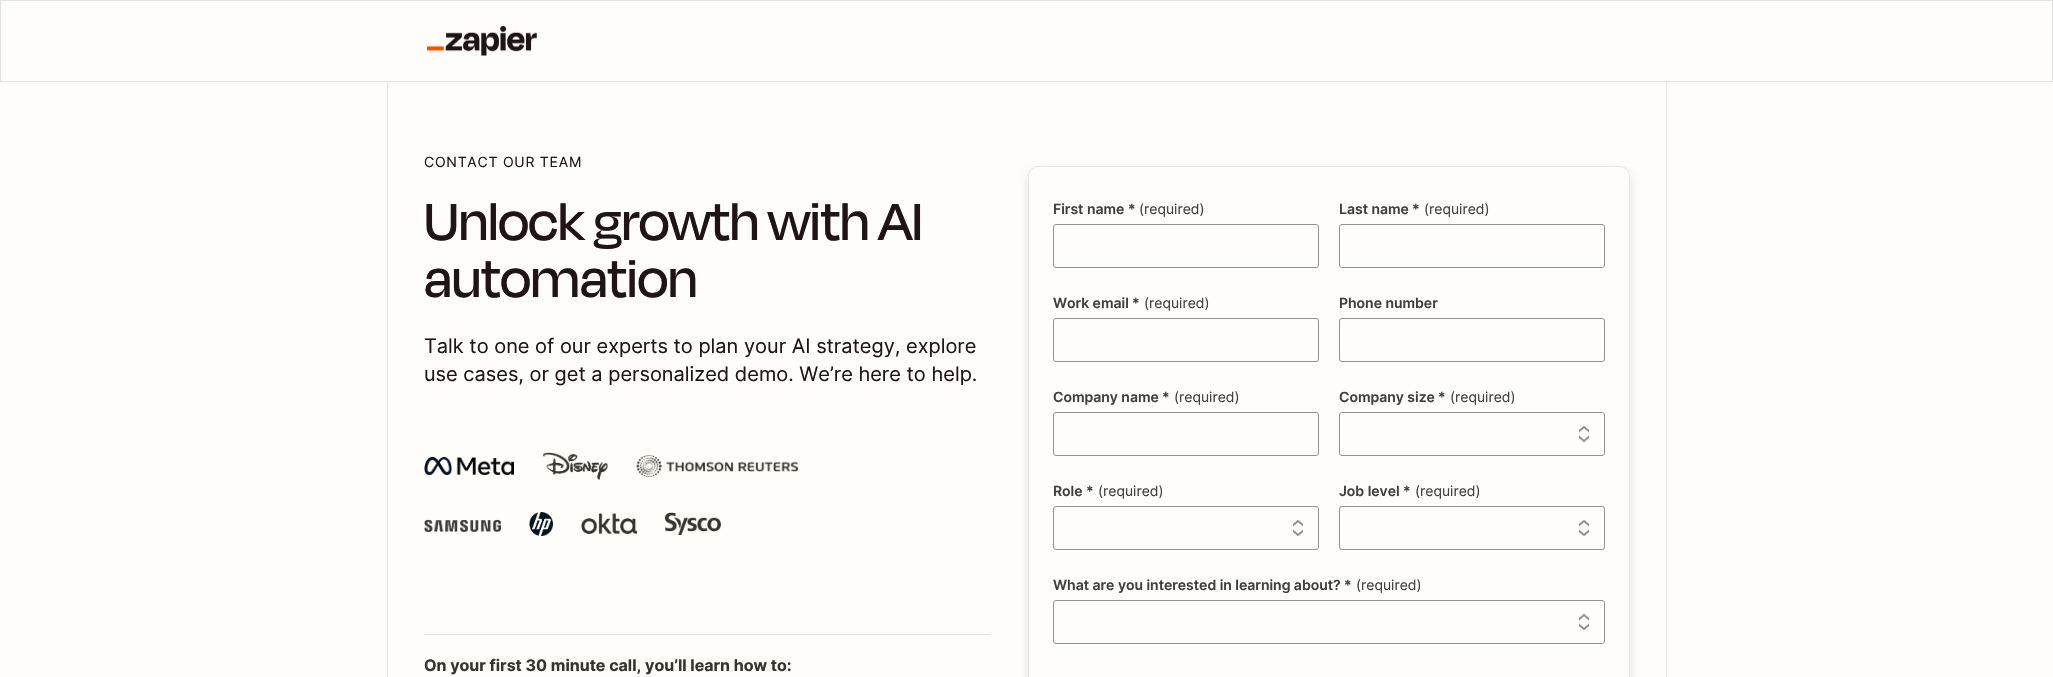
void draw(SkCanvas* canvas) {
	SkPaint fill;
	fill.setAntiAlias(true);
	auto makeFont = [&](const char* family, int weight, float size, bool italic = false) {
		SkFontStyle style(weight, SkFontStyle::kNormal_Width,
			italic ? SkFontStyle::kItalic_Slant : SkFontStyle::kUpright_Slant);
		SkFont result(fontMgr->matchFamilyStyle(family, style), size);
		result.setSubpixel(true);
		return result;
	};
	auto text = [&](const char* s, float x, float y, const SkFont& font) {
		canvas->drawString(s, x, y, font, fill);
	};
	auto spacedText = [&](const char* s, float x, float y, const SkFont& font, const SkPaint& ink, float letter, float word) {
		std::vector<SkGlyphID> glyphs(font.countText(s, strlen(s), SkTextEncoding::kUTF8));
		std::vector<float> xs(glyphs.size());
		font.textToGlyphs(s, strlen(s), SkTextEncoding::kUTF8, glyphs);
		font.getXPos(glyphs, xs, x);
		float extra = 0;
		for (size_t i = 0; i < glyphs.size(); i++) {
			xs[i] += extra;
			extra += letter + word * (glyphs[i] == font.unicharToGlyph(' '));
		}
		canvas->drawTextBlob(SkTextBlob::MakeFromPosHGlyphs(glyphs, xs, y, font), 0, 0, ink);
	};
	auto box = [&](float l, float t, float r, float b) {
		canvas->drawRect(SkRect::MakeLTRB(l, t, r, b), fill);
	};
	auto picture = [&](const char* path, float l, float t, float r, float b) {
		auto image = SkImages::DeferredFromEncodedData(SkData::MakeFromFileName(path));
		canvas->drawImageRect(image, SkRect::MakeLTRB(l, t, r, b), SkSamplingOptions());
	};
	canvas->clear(0xFFFFFDF9);
	fill.setStyle(SkPaint::kStroke_Style);
	fill.setStrokeWidth(1);
	fill.setColor(0xFFE2E2DF);
	canvas->drawRect(SkRect::MakeLTRB(0.5f, 0.5f, 2052.5f, 81.5f), fill);
	picture("image0.png", 427, 26, 537, 56);
	fill.setStyle(SkPaint::kFill_Style);
	box(387, 82, 388, 677);
	picture("image1.png", 424, 457, 514, 475);
	picture("image2.png", 542, 452, 608, 480);
	picture("image3.png", 636, 455, 798, 477);
	picture("image4.png", 424, 519, 501, 532);
	picture("image5.png", 529, 512, 553, 536);
	picture("image6.png", 581, 513, 637, 534);
	picture("image7.png", 665, 512, 721, 535);
	box(424, 634, 990, 635);
	box(1666, 82, 1667, 677);
	fill.setColor(0x1A000000);
	fill.setMaskFilter(SkMaskFilter::MakeBlur(kNormal_SkBlurStyle, 5));
	canvas->drawRoundRect(SkRect::MakeLTRB(1028, 171, 1630, 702), 10, 10, fill);
	fill.setMaskFilter(nullptr);
	fill.setColor(0xFFFFFDF9);
	canvas->drawRoundRect(SkRect::MakeLTRB(1028.5f, 166.5f, 1629.5f, 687.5f), 9.5f, 9.5f, fill);
	fill.setStyle(SkPaint::kStroke_Style);
	fill.setColor(0xFFE6E6E6);
	canvas->drawRoundRect(SkRect::MakeLTRB(1028.5f, 166.5f, 1629.5f, 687.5f), 9.5f, 9.5f, fill);
	fill.setColor(0xFF95928E);
	canvas->drawRoundRect(SkRect::MakeLTRB(1053.5f, 224.5f, 1318.5f, 267.5f), 2.5f, 2.5f, fill);
	canvas->drawRoundRect(SkRect::MakeLTRB(1339.5f, 224.5f, 1604.5f, 267.5f), 2.5f, 2.5f, fill);
	canvas->drawRoundRect(SkRect::MakeLTRB(1053.5f, 318.5f, 1318.5f, 361.5f), 2.5f, 2.5f, fill);
	canvas->drawRoundRect(SkRect::MakeLTRB(1339.5f, 318.5f, 1604.5f, 361.5f), 2.5f, 2.5f, fill);
	canvas->drawRoundRect(SkRect::MakeLTRB(1053.5f, 412.5f, 1318.5f, 455.5f), 2.5f, 2.5f, fill);
	canvas->drawRoundRect(SkRect::MakeLTRB(1339.5f, 412.5f, 1604.5f, 455.5f), 2.5f, 2.5f, fill);
	picture("image8.png", 1579, 425, 1589, 443);
	canvas->drawRoundRect(SkRect::MakeLTRB(1053.5f, 506.5f, 1318.5f, 549.5f), 2.5f, 2.5f, fill);
	picture("image8.png", 1293, 519, 1303, 537);
	canvas->drawRoundRect(SkRect::MakeLTRB(1339.5f, 506.5f, 1604.5f, 549.5f), 2.5f, 2.5f, fill);
	picture("image8.png", 1579, 519, 1589, 537);
	canvas->drawRoundRect(SkRect::MakeLTRB(1053.5f, 600.5f, 1604.5f, 643.5f), 2.5f, 2.5f, fill);
	picture("image8.png", 1579, 613, 1589, 631);
	auto font1 = makeFont("Inter", 400, 14);
	fill.setStyle(SkPaint::kFill_Style);
	fill.setColor(0xFF201515);
	spacedText("CONTACT OUR TEAM", 424, 167, font1, fill, 0.75f, 0);
	auto font2 = makeFont("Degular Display", 500, 60);
	text("Unlock growth with AI", 424, 240, font2);
	text("automation", 424, 297, font2);
	auto font3 = makeFont("Inter", 400, 20);
	text("Talk to one of our experts to plan your AI strategy, explore", 424, 353, font3);
	text("use cases, or get a personalized demo. We’re here to help.", 424, 381, font3);
	auto font4 = makeFont("Inter", 700, 16);
	fill.setColor(0xFF36342E);
	text("On your first 30 minute call, you’ll learn how to:", 424, 671, font4);
	auto font5 = makeFont("Inter", 600, 14);
	fill.setColor(0xFF403F3E);
	text("First name", 1053, 214, font5);
	text("*", 1128, 214, font5);
	text("(required)", 1139, 214, font1);
	text("Last name", 1339, 214, font5);
	text("*", 1412, 214, font5);
	text("(required)", 1424, 214, font1);
	text("Work email", 1053, 308, font5);
	text("*", 1132, 308, font5);
	text("(required)", 1144, 308, font1);
	text("Phone number", 1339, 308, font5);
	text("Company name", 1053, 402, font5);
	text("*", 1162, 402, font5);
	text("(required)", 1174, 402, font1);
	text("Company size", 1339, 402, font5);
	text("*", 1438, 402, font5);
	text("(required)", 1450, 402, font1);
	text("Role", 1053, 496, font5);
	text("*", 1086, 496, font5);
	text("(required)", 1098, 496, font1);
	text("Job level", 1339, 496, font5);
	text("*", 1403, 496, font5);
	text("(required)", 1415, 496, font1);
	text("What are you interested in learning about?", 1053, 590, font5);
	text("*", 1344, 590, font5);
	text("(required)", 1356, 590, font1);
}
